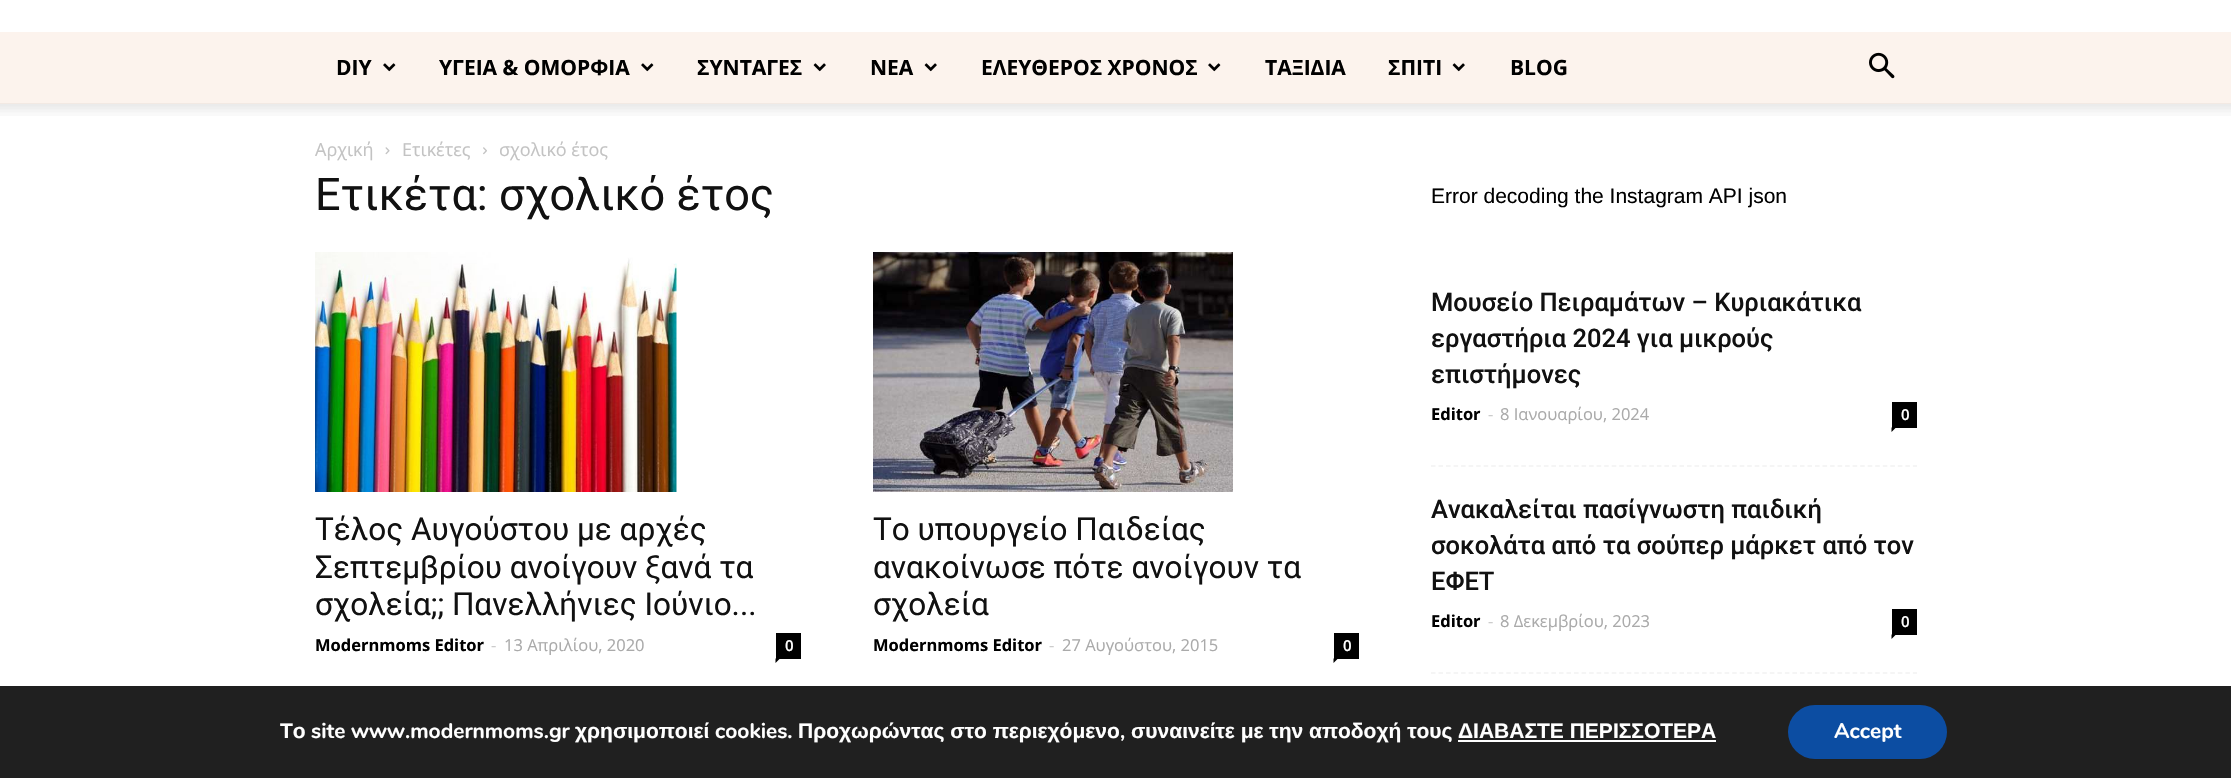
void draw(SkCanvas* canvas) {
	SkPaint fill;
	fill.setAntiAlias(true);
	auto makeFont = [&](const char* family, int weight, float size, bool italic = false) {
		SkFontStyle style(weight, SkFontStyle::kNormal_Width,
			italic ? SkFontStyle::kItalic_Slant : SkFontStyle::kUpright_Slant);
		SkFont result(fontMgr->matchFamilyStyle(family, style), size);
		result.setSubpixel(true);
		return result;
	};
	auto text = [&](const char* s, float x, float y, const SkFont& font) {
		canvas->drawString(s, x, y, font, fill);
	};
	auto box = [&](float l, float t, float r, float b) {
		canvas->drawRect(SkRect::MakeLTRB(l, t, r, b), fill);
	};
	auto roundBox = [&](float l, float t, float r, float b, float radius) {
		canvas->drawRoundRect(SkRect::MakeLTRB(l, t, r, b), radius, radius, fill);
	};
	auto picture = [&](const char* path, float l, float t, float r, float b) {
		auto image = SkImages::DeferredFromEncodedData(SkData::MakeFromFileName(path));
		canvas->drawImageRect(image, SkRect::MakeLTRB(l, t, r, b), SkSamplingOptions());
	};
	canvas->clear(0xFFFFFFFF);
	fill.setColor(0xFFFCF3ED);
	box(0, 32, 2231, 104);
	picture("image0.png", 383, 63, 396, 72);
	picture("image0.png", 641, 63, 654, 72);
	picture("image1.png", 813, 63, 826, 72);
	picture("image1.png", 924, 63, 937, 72);
	picture("image0.png", 1208, 63, 1221, 72);
	picture("image1.png", 1452, 63, 1465, 72);
	picture("image2.png", 1869, 52, 1895, 79);
	picture("image3.png", 0, 103, 2231, 116);
	picture("image4.png", 385, 147, 390, 155);
	picture("image5.png", 483, 147, 487, 155);
	picture("image6.png", 315, 252, 677, 492);
	fill.setColor(0xFF000000);
	box(776, 633, 801, 659);
	canvas->drawPath(SkPathBuilder().moveTo(775.5f, 658.5f).lineTo(780, 658.5f).lineTo(775.5f, 663).close().detach(), fill);
	picture("image7.png", 873, 252, 1233, 492);
	box(1334, 633, 1359, 659);
	canvas->drawPath(SkPathBuilder().moveTo(1333.5f, 658.5f).lineTo(1338, 658.5f).lineTo(1333.5f, 663).close().detach(), fill);
	fill.setStyle(SkPaint::kStroke_Style);
	fill.setStrokeWidth(1.5f);
	fill.setColor(0xFFF2F2F2);
	fill.setPathEffect(SkDashPathEffect::Make({{4.5f, 3.03f}}, 0));
	canvas->drawPath(SkPathBuilder().moveTo(1431, 466).lineTo(1917, 466).detach(), fill);
	fill.setPathEffect(nullptr);
	fill.setStyle(SkPaint::kFill_Style);
	fill.setColor(0xFF000000);
	box(1892, 402, 1917, 428);
	canvas->drawPath(SkPathBuilder().moveTo(1891.5f, 427.5f).lineTo(1896, 427.5f).lineTo(1891.5f, 432).close().detach(), fill);
	fill.setStyle(SkPaint::kStroke_Style);
	fill.setColor(0xFFF2F2F2);
	fill.setPathEffect(SkDashPathEffect::Make({{4.5f, 3.03f}}, 0));
	canvas->drawPath(SkPathBuilder().moveTo(1431, 673).lineTo(1917, 673).detach(), fill);
	fill.setPathEffect(nullptr);
	fill.setStyle(SkPaint::kFill_Style);
	fill.setColor(0xFF000000);
	box(1892, 609, 1917, 635);
	canvas->drawPath(SkPathBuilder().moveTo(1891.5f, 634.5f).lineTo(1896, 634.5f).lineTo(1891.5f, 639).close().detach(), fill);
	fill.setColor(0xFF202020);
	box(0, 686, 2231, 778);
	fill.setColor(0xFFFFFFFF);
	box(1458, 740, 1716, 742);
	fill.setColor(0xFF0C4DA2);
	roundBox(1788, 705, 1947, 759, 27);
	auto font1 = makeFont("Open Sans", 700, 21);
	fill.setColor(0xFF000000);
	text("DIY", 336, 75, font1);
	text("ΥΓΕΙΑ & ΟΜΟΡΦΙΑ", 439, 75, font1);
	text("ΣΥΝΤΑΓΕΣ", 697, 75, font1);
	text("ΝΕΑ", 870, 75, font1);
	text("ΕΛΕΥΘΕΡΟΣ ΧΡΟΝΟΣ", 981, 75, font1);
	text("ΤΑΞΙΔΙΑ", 1265, 75, font1);
	text("ΣΠΙΤΙ", 1388, 75, font1);
	text("BLOG", 1510, 75, font1);
	auto font2 = makeFont("Open Sans", 400, 18);
	fill.setColor(0xFFC3C3C3);
	text("Αρχική", 315, 156, font2);
	text("Ετικέτες", 402, 156, font2);
	text("σχολικό έτος", 499, 156, font2);
	auto font3 = makeFont("Roboto", 400, 45);
	fill.setColor(0xFF111111);
	text("Ετικέτα: σχολικό έτος", 315, 210, font3);
	auto font4 = makeFont("Roboto", 400, 31.5f);
	text("Τέλος Αυγούστου με αρχές", 315, 540, font4);
	text("Σεπτεμβρίου ανοίγουν ξανά τα", 315, 578, font4);
	text("σχολεία;; Πανελλήνιες Ιούνιο...", 315, 615, font4);
	auto font5 = makeFont("Open Sans", 700, 16.5f);
	fill.setColor(0xFF000000);
	text("Modernmoms Editor", 315, 651, font5);
	auto font6 = makeFont("Open Sans", 400, 16.5f);
	fill.setColor(0xFFCCCCCC);
	text("-", 491, 651, font6);
	fill.setColor(0xFFAAAAAA);
	text("13 Απριλίου, 2020", 504, 651, font6);
	auto font7 = makeFont("Open Sans", 600, 15);
	fill.setColor(0xFFFFFFFF);
	text("0", 785, 651, font7);
	fill.setColor(0xFF111111);
	text("Το υπουργείο Παιδείας", 873, 540, font4);
	text("ανακοίνωσε πότε ανοίγουν τα", 873, 578, font4);
	text("σχολεία", 873, 615, font4);
	fill.setColor(0xFF000000);
	text("Modernmoms Editor", 873, 651, font5);
	fill.setColor(0xFFCCCCCC);
	text("-", 1049, 651, font6);
	fill.setColor(0xFFAAAAAA);
	text("27 Αυγούστου, 2015", 1062, 651, font6);
	fill.setColor(0xFFFFFFFF);
	text("0", 1343, 651, font7);
	auto font8 = makeFont("Liberation Sans", 400, 21);
	fill.setColor(0xFF000000);
	text("Error decoding the Instagram API json", 1431, 203, font8);
	auto font9 = makeFont("Roboto", 500, 25.5f);
	fill.setColor(0xFF111111);
	text("Μουσείο Πειραμάτων – Κυριακάτικα", 1431, 311, font9);
	text("εργαστήρια 2024 για μικρούς", 1431, 347, font9);
	text("επιστήμονες", 1431, 383, font9);
	fill.setColor(0xFF000000);
	text("Editor", 1431, 420, font5);
	fill.setColor(0xFFCCCCCC);
	text("-", 1488, 420, font6);
	fill.setColor(0xFFAAAAAA);
	text("8 Ιανουαρίου, 2024", 1500, 420, font6);
	fill.setColor(0xFFFFFFFF);
	text("0", 1901, 420, font7);
	fill.setColor(0xFF111111);
	text("Ανακαλείται πασίγνωστη παιδική", 1431, 518, font9);
	text("σοκολάτα από τα σούπερ μάρκετ από τον", 1431, 554, font9);
	text("ΕΦΕΤ", 1431, 590, font9);
	fill.setColor(0xFF000000);
	text("Editor", 1431, 627, font5);
	fill.setColor(0xFFCCCCCC);
	text("-", 1488, 627, font6);
	fill.setColor(0xFFAAAAAA);
	text("8 Δεκεμβρίου, 2023", 1500, 627, font6);
	fill.setColor(0xFFFFFFFF);
	text("0", 1901, 627, font7);
	auto font10 = makeFont("Liberation Sans", 700, 21);
	text("Το", 280, 738, font10);
	auto font11 = makeFont("Nunito", 700, 21);
	text("site www.modernmoms.gr", 311, 738, font11);
	text("χρησιμοποιεί", 575, 738, font10);
	text("cookies.", 715, 738, font11);
	text("Προχωρώντας στο περιεχόμενο", 798, 738, font10);
	text(",", 1120, 738, font11);
	text("συναινείτε με την αποδοχή τους", 1131, 738, font10);
	text("ΔΙΑΒΑΣΤΕ ΠΕΡΙΣΣΟΤΕΡΑ", 1458, 738, font10);
	text("Accept", 1834, 738, font11);
}
